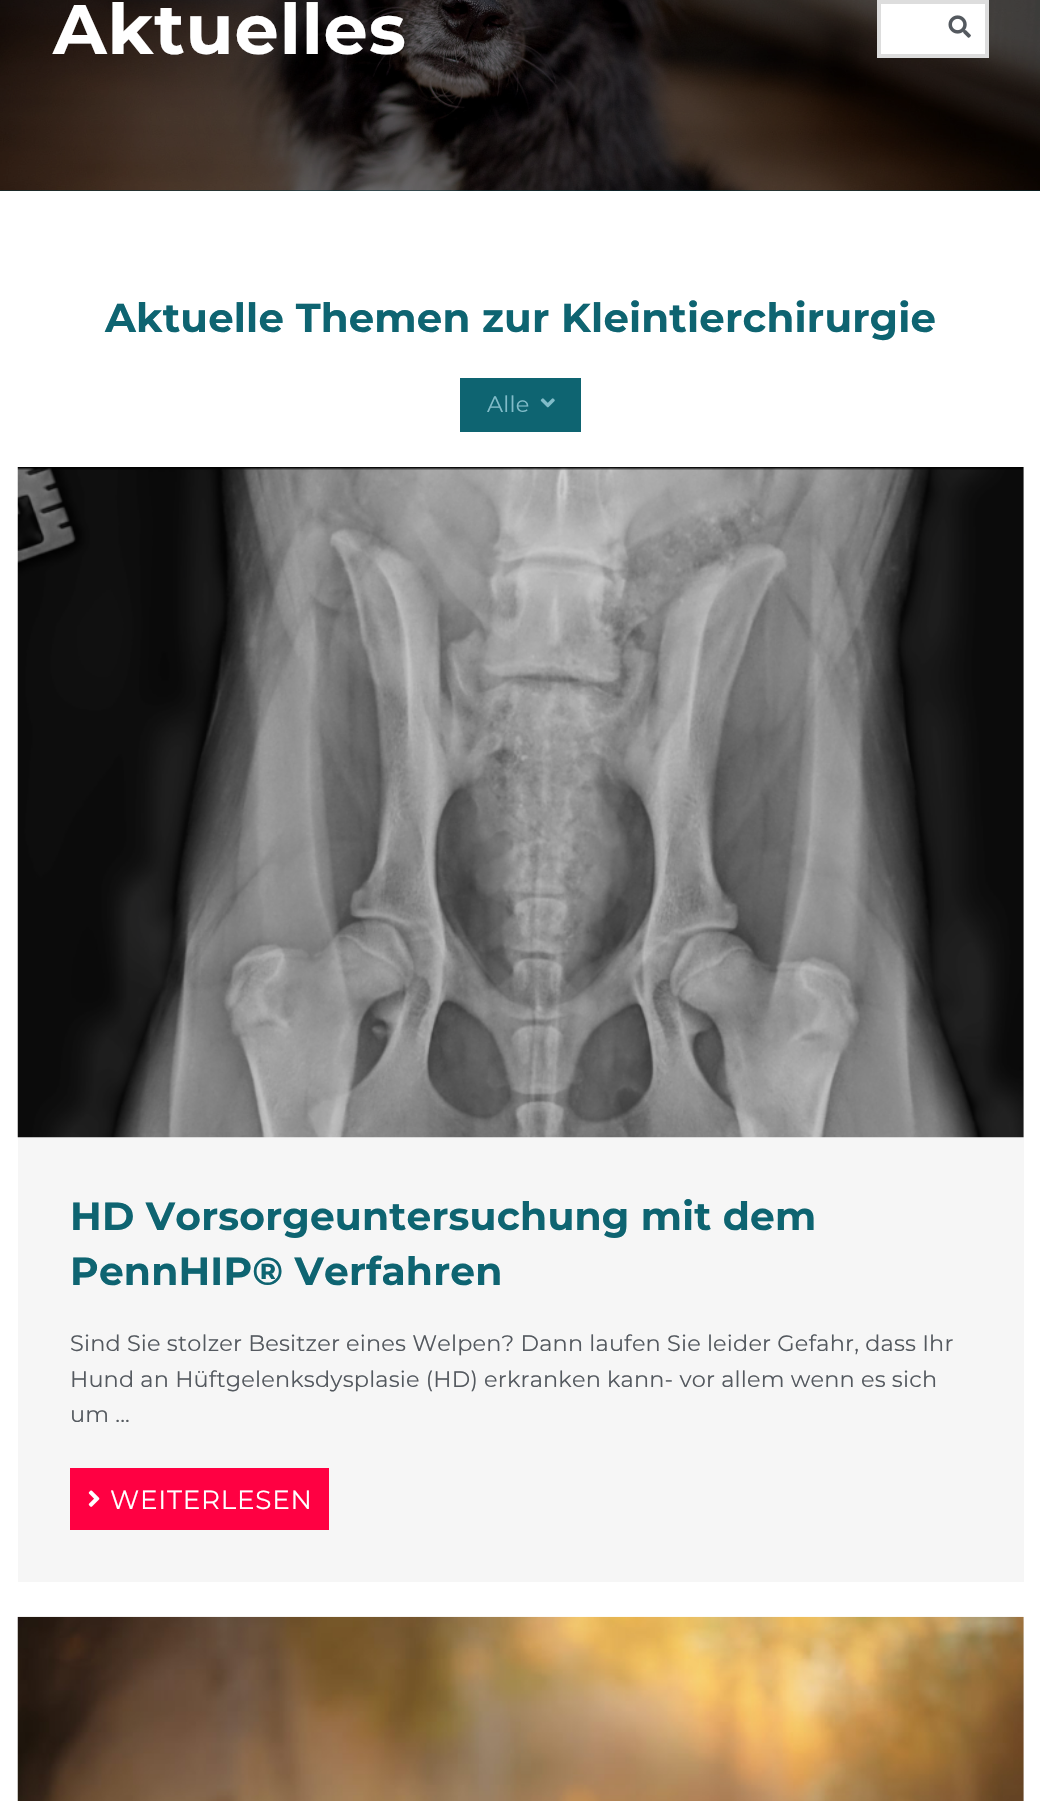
void draw(SkCanvas* canvas) {
	SkPaint fill;
	fill.setAntiAlias(true);
	auto makeFont = [&](const char* family, int weight, float size, bool italic = false) {
		SkFontStyle style(weight, SkFontStyle::kNormal_Width,
			italic ? SkFontStyle::kItalic_Slant : SkFontStyle::kUpright_Slant);
		SkFont result(fontMgr->matchFamilyStyle(family, style), size);
		result.setSubpixel(true);
		return result;
	};
	auto spacedText = [&](const char* s, float x, float y, const SkFont& font, const SkPaint& ink, float letter, float word) {
		std::vector<SkGlyphID> glyphs(font.countText(s, strlen(s), SkTextEncoding::kUTF8));
		std::vector<float> xs(glyphs.size());
		font.textToGlyphs(s, strlen(s), SkTextEncoding::kUTF8, glyphs);
		font.getXPos(glyphs, xs, x);
		float extra = 0;
		for (size_t i = 0; i < glyphs.size(); i++) {
			xs[i] += extra;
			extra += letter + word * (glyphs[i] == font.unicharToGlyph(' '));
		}
		canvas->drawTextBlob(SkTextBlob::MakeFromPosHGlyphs(glyphs, xs, y, font), 0, 0, ink);
	};
	auto box = [&](float l, float t, float r, float b) {
		canvas->drawRect(SkRect::MakeLTRB(l, t, r, b), fill);
	};
	auto picture = [&](const char* path, float l, float t, float r, float b) {
		auto image = SkImages::DeferredFromEncodedData(SkData::MakeFromFileName(path));
		canvas->drawImageRect(image, SkRect::MakeLTRB(l, t, r, b), SkSamplingOptions());
	};
	canvas->clear(0xFFFFFFFF);
	fill.setColor(0xFF073239);
	box(0, 190, 1040, 191);
	picture("image0.png", 0, 0, 1040, 191);
	fill.setColor(0xFFFFFFFF);
	canvas->drawRect(SkRect::MakeLTRB(879, 2, 987, 56), fill);
	fill.setStyle(SkPaint::kStroke_Style);
	fill.setStrokeWidth(4);
	fill.setColor(0xFFDDDDDD);
	canvas->drawRect(SkRect::MakeLTRB(879, 2, 987, 56), fill);
	picture("image1.png", 948, 15, 971, 38);
	fill.setStyle(SkPaint::kFill_Style);
	fill.setColor(0xFF0E6471);
	box(460, 378, 581, 432);
	picture("image2.png", 540, 398, 555, 408);
	fill.setColor(0xFFF6F6F6);
	box(18, 467, 1024, 1582);
	picture("image3.png", 17, 467, 1024, 1138);
	fill.setColor(0xFFFF0042);
	box(70, 1468, 329, 1530);
	picture("image4.png", 88, 1490, 100, 1507);
	fill.setColor(0xFFF6F6F6);
	box(1023, 1617, 1024, 1801);
	picture("image5.png", 17, 1616, 1024, 1801);
	auto font1 = makeFont("Montserrat", 700, 70);
	fill.setColor(0xFFFFFFFF);
	spacedText("Aktuelles", 53, 54, font1, fill, 0.9f, 0);
	auto font2 = makeFont("Montserrat", 700, 40.3f);
	fill.setColor(0xFF0E6471);
	spacedText("Aktuelle Themen zur Kleintierchirurgie", 105, 332, font2, fill, 0.18f, 0);
	auto font3 = makeFont("Montserrat", 400, 22.4f);
	fill.setColor(0xFF81BCC9);
	spacedText("Alle", 487, 412, font3, fill, 0.18f, 0);
	auto font4 = makeFont("Montserrat", 700, 39.25f);
	fill.setColor(0xFF0E6471);
	spacedText("HD Vorsorgeuntersuchung mit dem", 70, 1230, font4, fill, 0.18f, 0);
	spacedText("PennHIP® Verfahren", 70, 1285, font4, fill, 0.18f, 0);
	fill.setColor(0xFF54595F);
	spacedText("Sind Sie stolzer Besitzer eines Welpen? Dann laufen Sie leider Gefahr, dass Ihr", 70, 1351, font3, fill, 0.18f, 0);
	spacedText("Hund an Hüftgelenksdysplasie (HD) erkranken kann- vor allem wenn es sich", 70, 1387, font3, fill, 0.18f, 0);
	spacedText("um ...", 70, 1422, font3, fill, 0.18f, 0);
	auto font5 = makeFont("Montserrat", 400, 26.25f);
	fill.setColor(0xFFFFFFFF);
	spacedText("WEITERLESEN", 110, 1509, font5, fill, 0.75f, 0);
}
